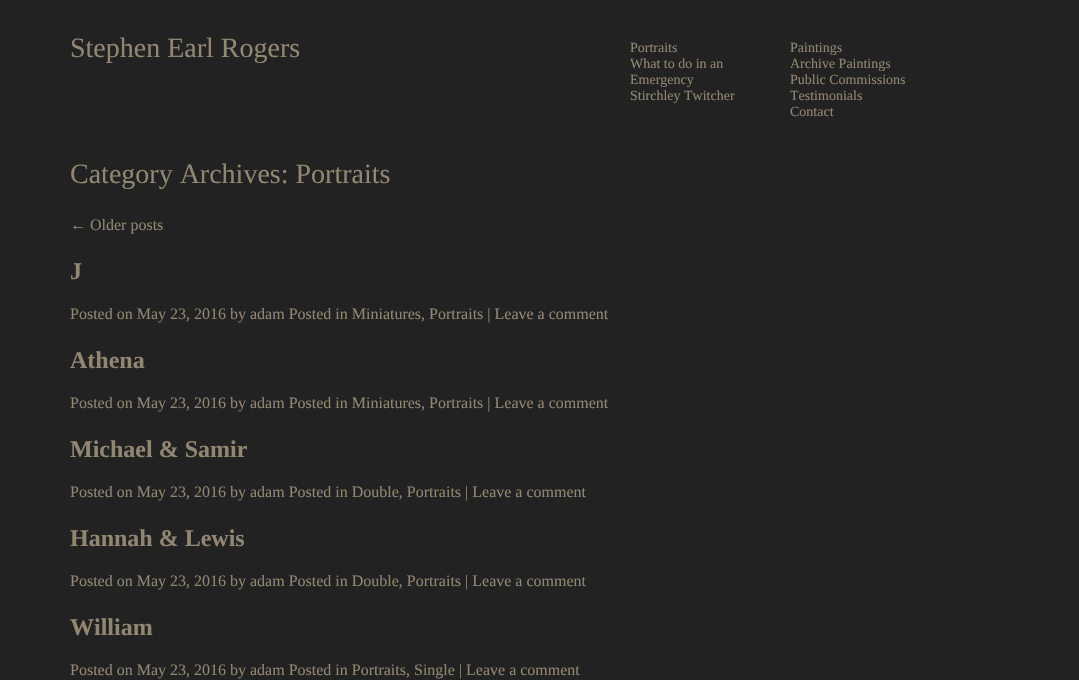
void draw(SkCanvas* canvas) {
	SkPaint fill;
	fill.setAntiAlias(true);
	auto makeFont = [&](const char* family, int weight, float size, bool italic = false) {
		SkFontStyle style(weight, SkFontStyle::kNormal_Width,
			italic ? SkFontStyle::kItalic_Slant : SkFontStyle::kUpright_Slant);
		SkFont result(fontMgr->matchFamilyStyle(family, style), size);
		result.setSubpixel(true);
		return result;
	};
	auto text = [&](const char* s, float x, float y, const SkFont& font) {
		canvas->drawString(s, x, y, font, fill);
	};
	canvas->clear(0xFF222222);
	auto font1 = makeFont("Liberation Serif", 400, 28);
	fill.setColor(0xFF908672);
	text("Stephen Earl Rogers", 70, 57, font1);
	auto font2 = makeFont("Liberation Serif", 400, 14);
	text("Portraits", 630, 52, font2);
	text("Paintings", 790, 52, font2);
	text("What to do in an", 630, 68, font2);
	text("Emergency", 630, 84, font2);
	text("Archive Paintings", 790, 68, font2);
	text("Public Commissions", 790, 84, font2);
	text("Stirchley Twitcher", 630, 100, font2);
	text("Testimonials", 790, 100, font2);
	text("Contact", 790, 116, font2);
	text("Category Archives: Portraits", 70, 183, font1);
	auto font3 = makeFont("Liberation Serif", 400, 16);
	text("← Older posts", 70, 230, font3);
	auto font4 = makeFont("Liberation Serif", 700, 24);
	text("J", 70, 279, font4);
	text("Posted on May 23, 2016 by adam Posted in Miniatures, Portraits | Leave a comment", 70, 319, font3);
	text("Athena", 70, 368, font4);
	text("Posted on May 23, 2016 by adam Posted in Miniatures, Portraits | Leave a comment", 70, 408, font3);
	text("Michael & Samir", 70, 457, font4);
	text("Posted on May 23, 2016 by adam Posted in Double, Portraits | Leave a comment", 70, 497, font3);
	text("Hannah & Lewis", 70, 546, font4);
	text("Posted on May 23, 2016 by adam Posted in Double, Portraits | Leave a comment", 70, 586, font3);
	text("William", 70, 635, font4);
	text("Posted on May 23, 2016 by adam Posted in Portraits, Single | Leave a comment", 70, 675, font3);
}
